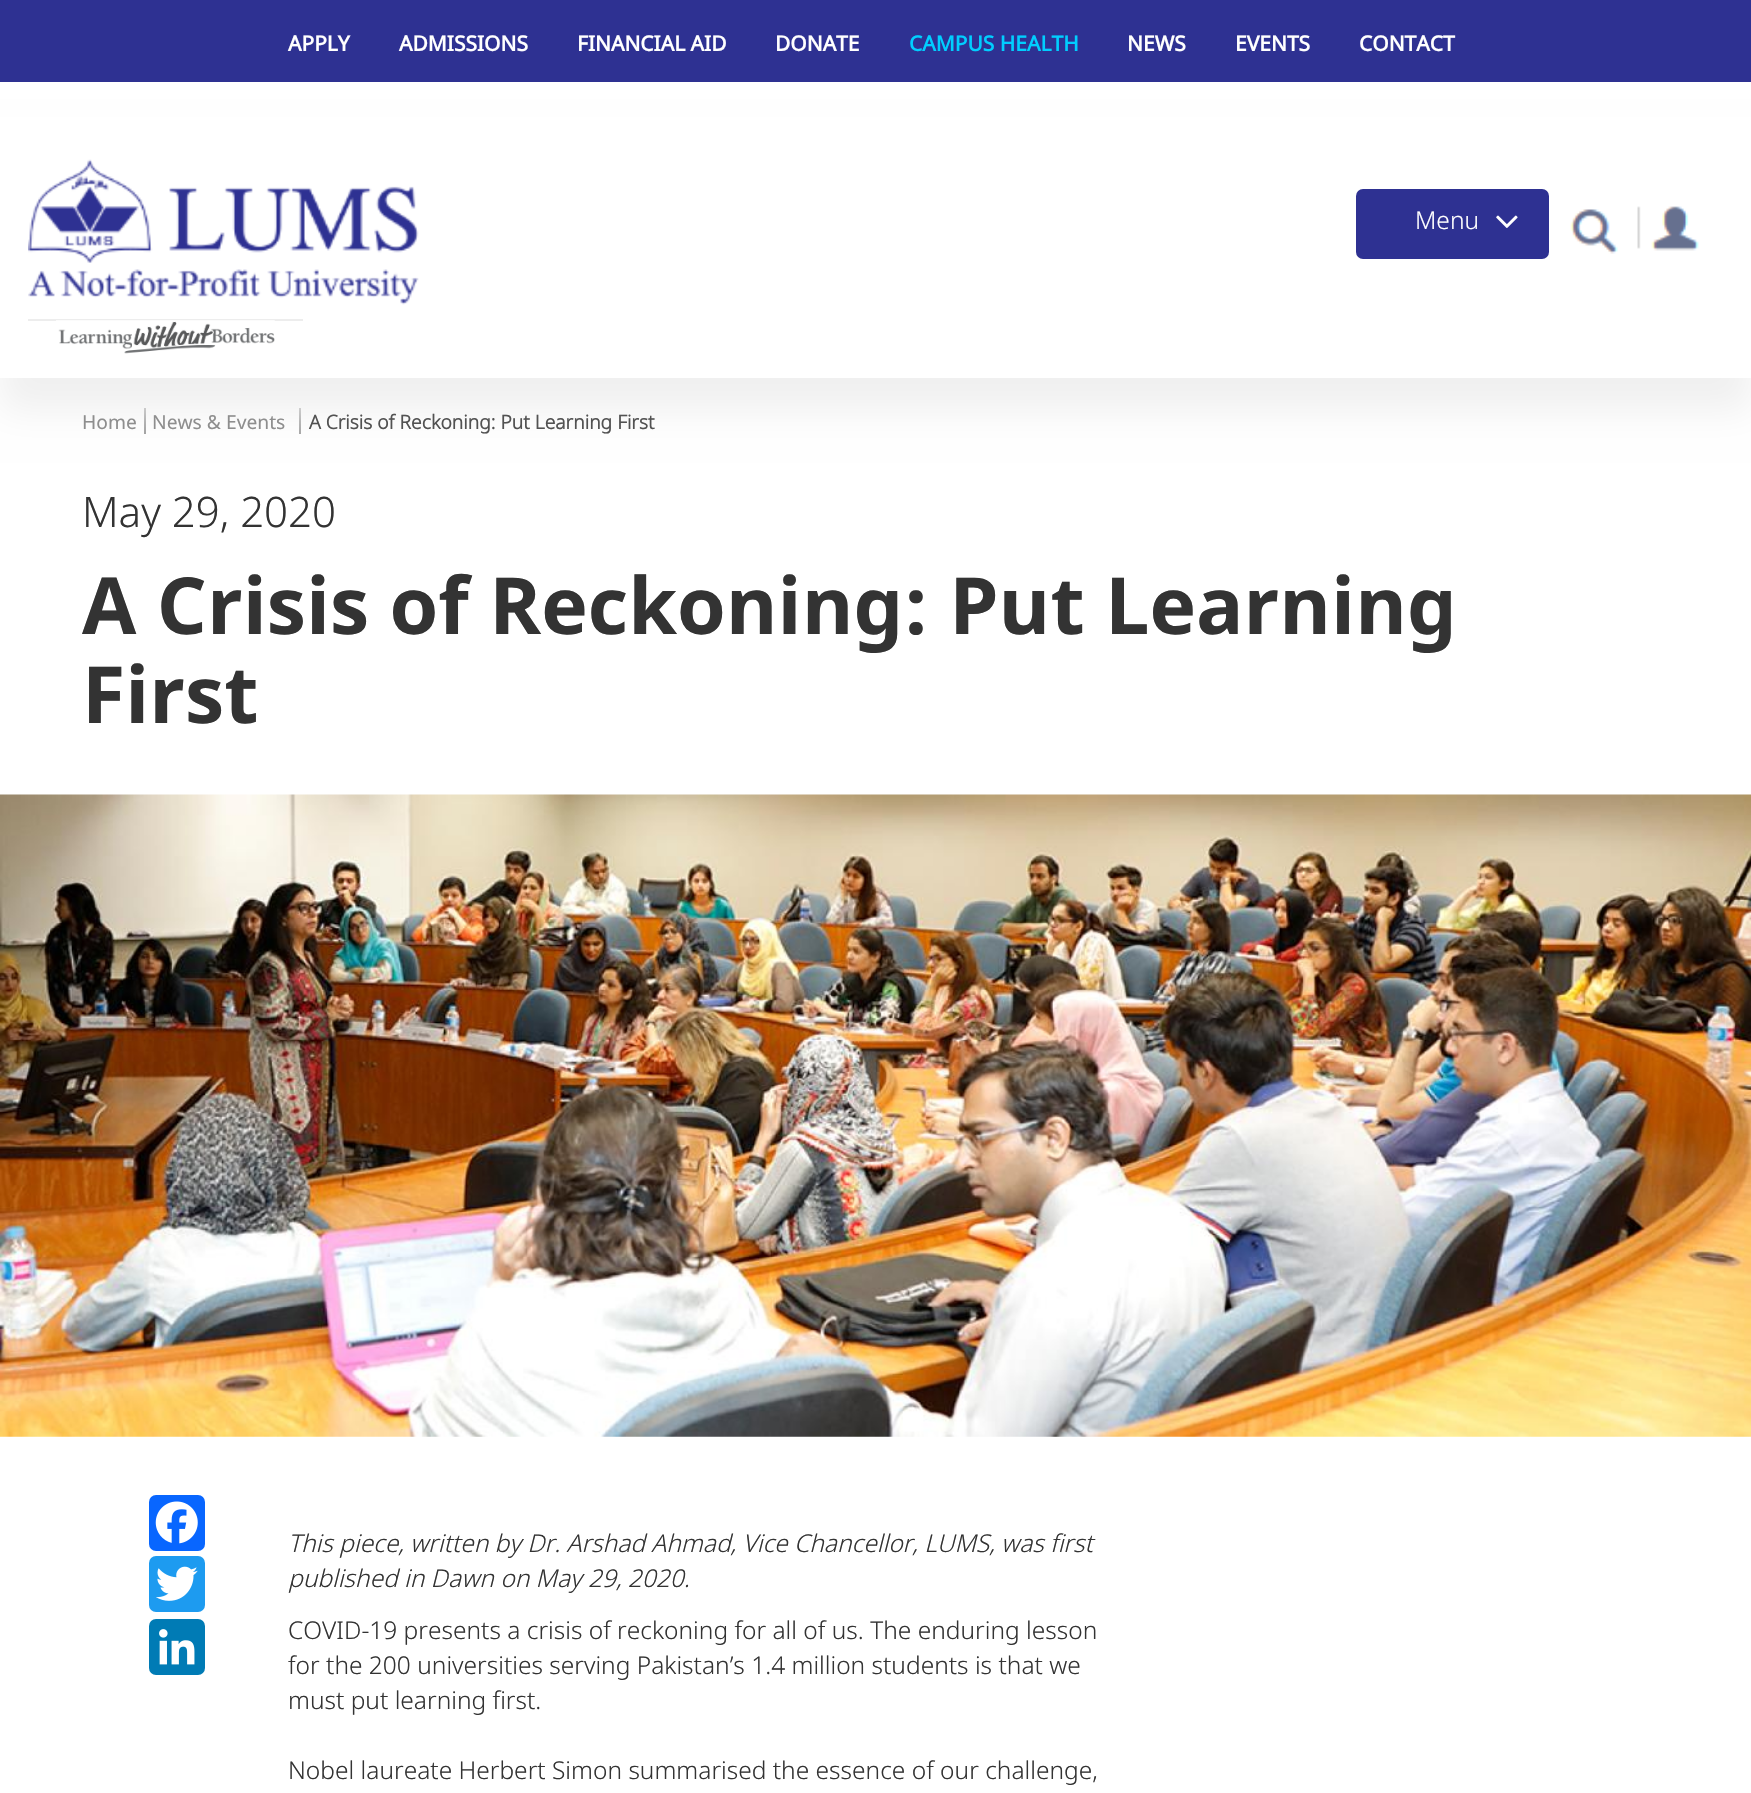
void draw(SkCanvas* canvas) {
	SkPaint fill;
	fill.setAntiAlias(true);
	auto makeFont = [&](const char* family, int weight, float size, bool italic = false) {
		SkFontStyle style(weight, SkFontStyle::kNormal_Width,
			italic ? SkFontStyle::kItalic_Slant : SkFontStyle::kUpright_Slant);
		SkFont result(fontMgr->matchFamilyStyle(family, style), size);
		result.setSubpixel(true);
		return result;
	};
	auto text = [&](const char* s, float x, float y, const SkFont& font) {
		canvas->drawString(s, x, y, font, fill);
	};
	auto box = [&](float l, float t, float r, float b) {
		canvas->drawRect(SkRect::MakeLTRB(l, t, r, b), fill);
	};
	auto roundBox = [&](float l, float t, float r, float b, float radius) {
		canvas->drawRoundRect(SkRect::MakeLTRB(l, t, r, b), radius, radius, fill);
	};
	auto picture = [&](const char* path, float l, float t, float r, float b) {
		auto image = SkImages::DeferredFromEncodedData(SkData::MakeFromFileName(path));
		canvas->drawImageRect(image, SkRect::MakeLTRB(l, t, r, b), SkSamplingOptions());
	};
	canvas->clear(0xFFFFFFFF);
	fill.setColor(0xFF2E3192);
	box(0, 0, 1751, 82);
	fill.setColor(0xFF9B9B9B);
	box(144, 408, 146, 434);
	fill.setColor(0xFFA1A1A1);
	box(299, 408, 301, 434);
	canvas->save();
	canvas->clipPath(SkPathBuilder(SkPathFillType::kEvenOdd).moveTo(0, 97).lineTo(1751, 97).lineTo(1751, 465).lineTo(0, 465).close().moveTo(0, 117).lineTo(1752, 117).lineTo(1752, 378).lineTo(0, 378).close().detach(), true);
	fill.setColor(0xFFF0F0F0);
	fill.setMaskFilter(SkMaskFilter::MakeBlur(kNormal_SkBlurStyle, 17.5f));
	canvas->drawRect(SkRect::MakeLTRB(0, 151, 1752, 411), fill);
	fill.setMaskFilter(nullptr);
	canvas->restore();
	picture("image0.png", 28, 159, 419, 305);
	fill.setColor(0xFFEDEDED);
	box(28, 319, 303, 321);
	picture("image1.png", 56, 320, 275, 354);
	fill.setColor(0xFF2E3192);
	roundBox(1356, 189, 1549, 259, 7);
	picture("image2.png", 1496, 215, 1518, 228);
	picture("image3.png", 1570, 209, 1618, 254);
	picture("image4.png", 1637, 206, 1699, 251);
	picture("image5.png", 0, 794, 1751, 1437);
	fill.setColor(0xFF0866FF);
	roundBox(149, 1495, 205, 1551, 7);
	picture("image6.png", 155, 1501, 198, 1544);
	fill.setColor(0xFF1D9BF0);
	roundBox(149, 1556, 205, 1612, 7);
	picture("image7.png", 156, 1566, 198, 1601);
	fill.setColor(0xFF007BB5);
	roundBox(149, 1619, 205, 1675, 7);
	picture("image8.png", 159, 1629, 195, 1665);
	auto font1 = makeFont("Noto Sans", 700, 21);
	fill.setColor(0xFFFFFFFF);
	text("APPLY", 288, 51, font1);
	text("ADMISSIONS", 399, 51, font1);
	text("FINANCIAL AID", 577, 51, font1);
	text("DONATE", 775, 51, font1);
	fill.setColor(0xFF00CEFF);
	text("CAMPUS HEALTH", 909, 51, font1);
	fill.setColor(0xFFFFFFFF);
	text("NEWS", 1127, 51, font1);
	text("EVENTS", 1235, 51, font1);
	text("CONTACT", 1359, 51, font1);
	auto font2 = makeFont("Noto Sans", 300, 24.5f);
	text("Menu", 1415, 229, font2);
	auto font3 = makeFont("Noto Sans", 400, 19.25f);
	fill.setColor(0xFF8E8E8E);
	text("Home", 82, 429, font3);
	text("News & Events", 152, 429, font3);
	auto font4 = makeFont("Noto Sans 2", 700, 19.25f);
	fill.setColor(0xFF525252);
	text("A Crisis of Reckoning: Put Learning First", 309, 429, font4);
	auto font5 = makeFont("Noto Sans", 300, 42);
	fill.setColor(0xFF333333);
	text("May 29, 2020", 82, 527, font5);
	auto font6 = makeFont("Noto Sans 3", 700, 78.75f);
	text("A Crisis of Reckoning: Put Learning", 82, 634, font6);
	text("First", 82, 723, font6);
	auto font7 = makeFont("Noto Sans", 300, 24.5f, true);
	text("This piece, written by Dr. Arshad Ahmad, Vice Chancellor, LUMS, was first", 288, 1552, font7);
	text("published in Dawn on May 29, 2020.", 288, 1587, font7);
	text("COVID-19 presents a crisis of reckoning for all of us. The enduring lesson", 288, 1639, font2);
	text("for the 200 universities serving Pakistan’s 1.4 million students is that we", 288, 1674, font2);
	text("must put learning first.", 288, 1709, font2);
	text("Nobel laureate Herbert Simon summarised the essence of our challenge,", 288, 1779, font2);
}
